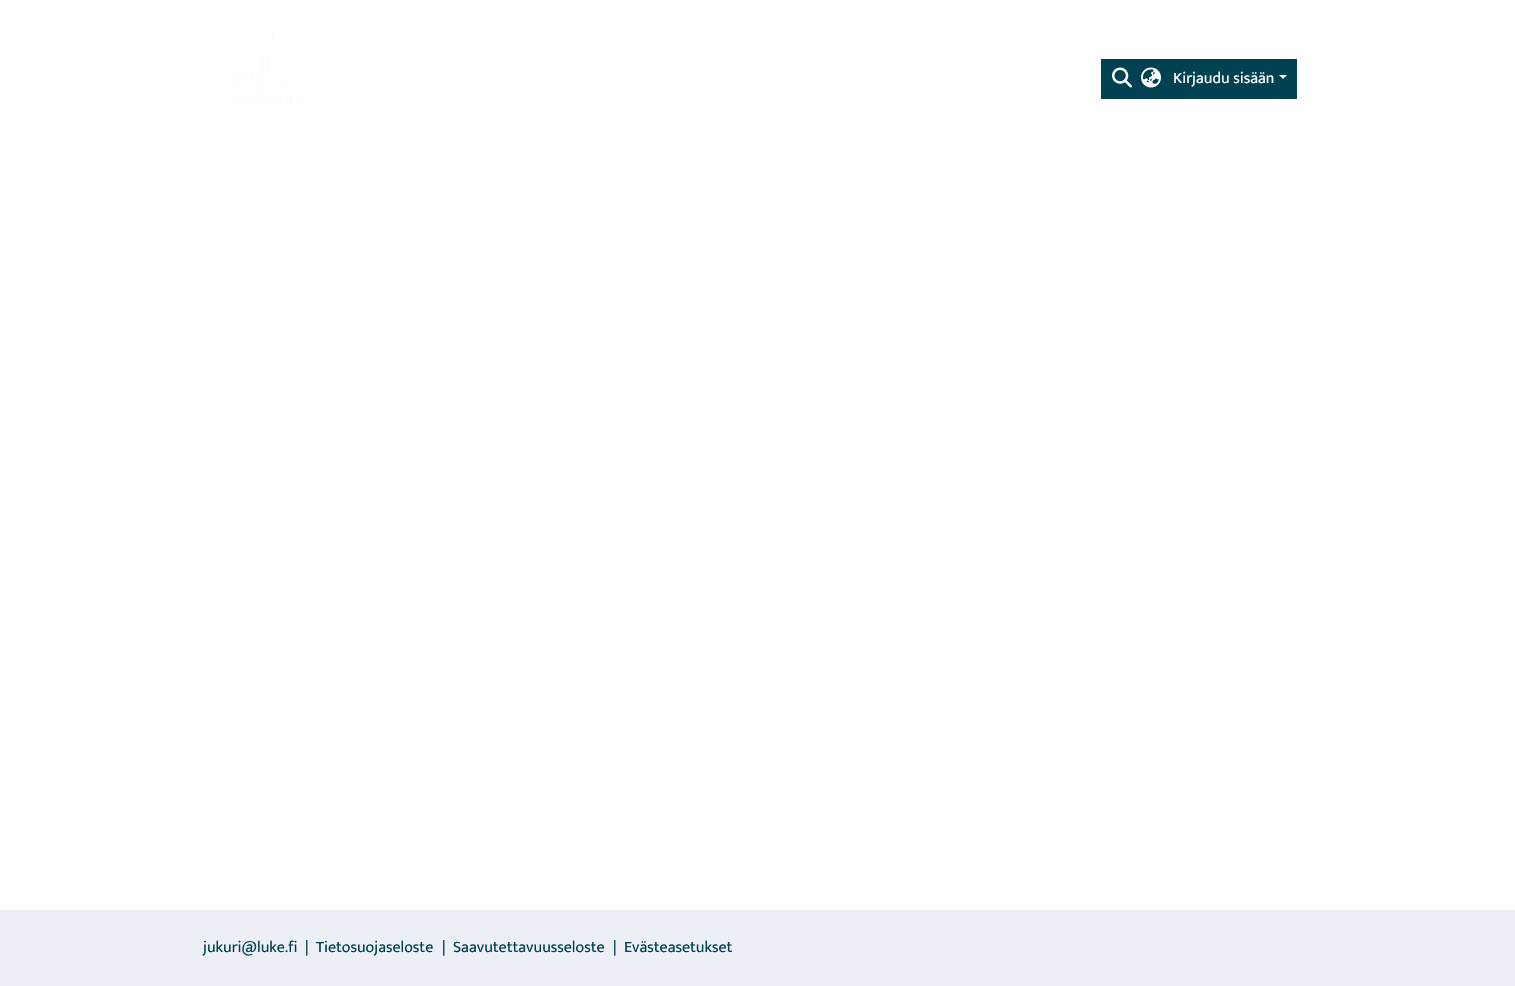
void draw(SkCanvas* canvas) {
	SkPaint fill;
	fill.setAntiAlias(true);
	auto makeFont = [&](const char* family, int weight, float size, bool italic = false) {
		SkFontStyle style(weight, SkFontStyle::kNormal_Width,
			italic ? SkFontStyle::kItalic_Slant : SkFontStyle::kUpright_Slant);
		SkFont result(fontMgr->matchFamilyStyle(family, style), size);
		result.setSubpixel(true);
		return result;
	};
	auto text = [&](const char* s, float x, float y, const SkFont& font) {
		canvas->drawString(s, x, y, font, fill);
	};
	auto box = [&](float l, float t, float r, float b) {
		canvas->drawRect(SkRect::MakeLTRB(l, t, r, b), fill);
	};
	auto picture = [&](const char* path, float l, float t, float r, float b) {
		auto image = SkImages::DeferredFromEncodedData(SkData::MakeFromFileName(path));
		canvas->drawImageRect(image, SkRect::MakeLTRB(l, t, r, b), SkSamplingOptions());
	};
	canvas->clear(0xFFFFFFFF);
	picture("image0.png", 229, 36, 300, 103);
	fill.setColor(0xFF004152);
	box(1101, 59, 1297, 99);
	picture("image1.png", 1112, 67, 1132, 88);
	picture("image2.png", 1141, 67, 1161, 88);
	fill.setColor(0xFFFFFFFF);
	canvas->drawPath(SkPathBuilder().moveTo(1279, 75).lineTo(1287, 75).lineTo(1283, 79).close().detach(), fill);
	fill.setColor(0xFFECEFF5);
	box(0, 910, 1515, 986);
	auto font1 = makeFont("Mukta", 400, 16);
	fill.setColor(0xFFFFFFFF);
	text("Kirjaudu sisään", 1173, 83, font1);
	fill.setColor(0xFF004152);
	text("jukuri@luke.fi", 203, 952, font1);
	text("|", 305, 952, font1);
	text("Tietosuojaseloste", 316, 952, font1);
	text("|", 442, 952, font1);
	text("Saavutettavuusseloste", 453, 952, font1);
	text("|", 613, 952, font1);
	text("Evästeasetukset", 624, 952, font1);
}
